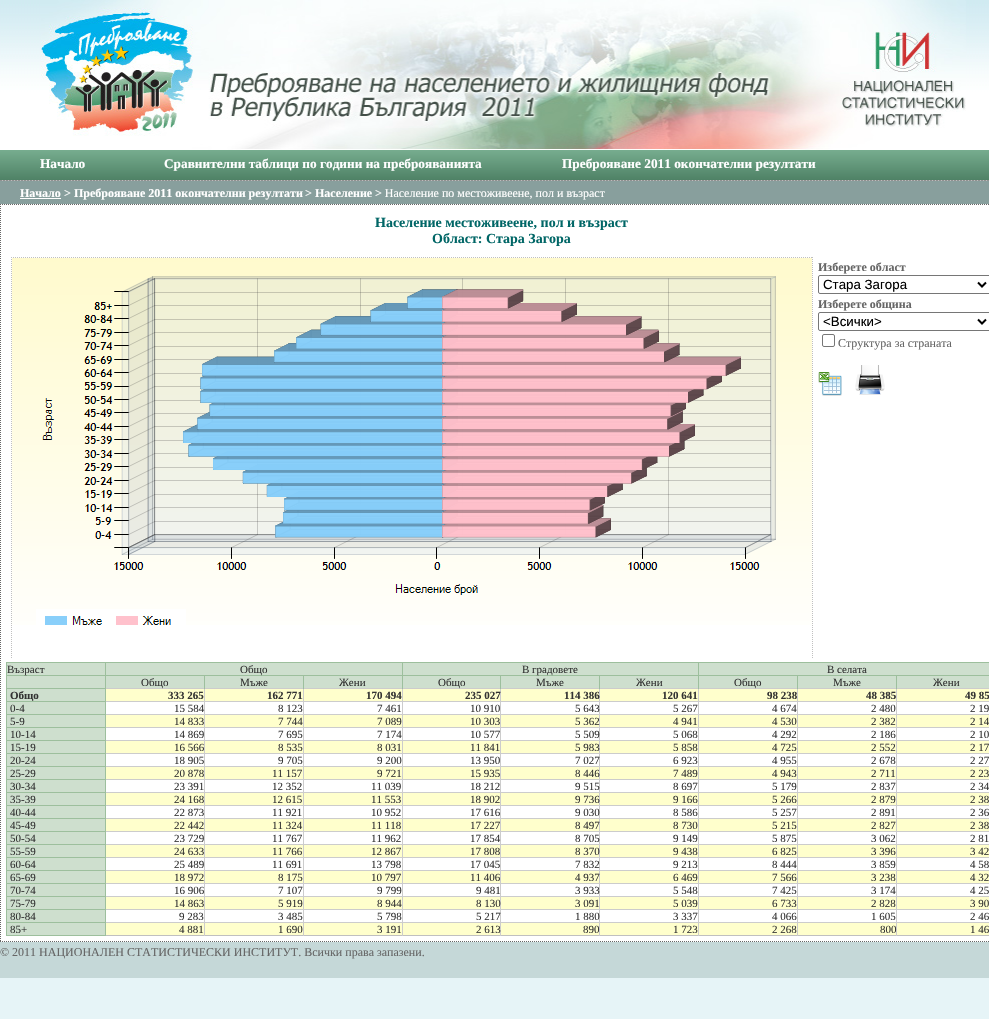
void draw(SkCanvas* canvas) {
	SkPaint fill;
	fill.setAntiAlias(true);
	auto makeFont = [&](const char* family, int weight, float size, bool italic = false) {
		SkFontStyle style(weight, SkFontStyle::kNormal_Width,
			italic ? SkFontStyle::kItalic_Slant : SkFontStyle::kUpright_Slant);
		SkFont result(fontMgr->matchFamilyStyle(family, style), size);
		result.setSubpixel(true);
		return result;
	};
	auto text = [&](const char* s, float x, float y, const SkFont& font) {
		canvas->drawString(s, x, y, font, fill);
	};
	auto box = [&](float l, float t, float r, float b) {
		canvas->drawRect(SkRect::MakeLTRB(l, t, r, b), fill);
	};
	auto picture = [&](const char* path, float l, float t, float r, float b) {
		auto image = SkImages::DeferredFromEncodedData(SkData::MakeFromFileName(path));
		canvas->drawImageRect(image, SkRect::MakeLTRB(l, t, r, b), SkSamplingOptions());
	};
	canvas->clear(0xFFE6F4F7);
	picture("image0.png", 0, 0, 989, 181);
	picture("image1.png", 41, 0, 966, 150);
	picture("image2.png", 0, 150, 989, 180);
	fill.setColor(0xFF889F9D);
	box(0, 181, 989, 204);
	fill.setColor(0xFFFFFFFF);
	box(20, 198, 61, 199);
	box(0, 204, 989, 942);
	fill.setStyle(SkPaint::kStroke_Style);
	fill.setStrokeWidth(1);
	fill.setColor(0xFF666666);
	fill.setPathEffect(SkDashPathEffect::Make({{1, 1}}, 0));
	canvas->drawPath(SkPathBuilder().moveTo(0, 204.5f).lineTo(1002, 204.5f).detach(), fill);
	fill.setPathEffect(nullptr);
	fill.setPathEffect(SkDashPathEffect::Make({{1, 1}}, 0));
	canvas->drawPath(SkPathBuilder().moveTo(0, 941.5f).lineTo(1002, 941.5f).detach(), fill);
	fill.setPathEffect(nullptr);
	fill.setPathEffect(SkDashPathEffect::Make({{1, 1}}, 0));
	canvas->drawPath(SkPathBuilder().moveTo(0.5f, 204).lineTo(0.5f, 942).detach(), fill);
	fill.setPathEffect(nullptr);
	fill.setColor(0xFFC0C0C0);
	fill.setPathEffect(SkDashPathEffect::Make({{1, 1}}, 0));
	canvas->drawPath(SkPathBuilder().moveTo(11, 257.5f).lineTo(813, 257.5f).detach(), fill);
	fill.setPathEffect(nullptr);
	fill.setPathEffect(SkDashPathEffect::Make({{1, 1}}, 0));
	canvas->drawPath(SkPathBuilder().moveTo(11.5f, 257).lineTo(11.5f, 658).detach(), fill);
	fill.setPathEffect(nullptr);
	picture("image3.png", 12, 258, 812, 625);
	fill.setPathEffect(SkDashPathEffect::Make({{1, 1}}, 0));
	canvas->drawPath(SkPathBuilder().moveTo(812.5f, 257).lineTo(812.5f, 658).detach(), fill);
	fill.setPathEffect(nullptr);
	fill.setColor(0xFF767676);
	canvas->drawRoundRect(SkRect::MakeLTRB(818.5f, 275.5f, 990.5f, 293.5f), 1.5f, 1.5f, fill);
	fill.setStrokeWidth(2);
	fill.setColor(0xFF000000);
	canvas->drawPath(SkPathBuilder().moveTo(978, 282.5f).lineTo(982, 286.5f).lineTo(986, 282.5f).detach(), fill);
	fill.setStrokeWidth(1);
	fill.setColor(0xFF767676);
	canvas->drawRoundRect(SkRect::MakeLTRB(818.5f, 312.5f, 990.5f, 330.5f), 1.5f, 1.5f, fill);
	fill.setStrokeWidth(2);
	fill.setColor(0xFF000000);
	canvas->drawPath(SkPathBuilder().moveTo(978, 319.5f).lineTo(982, 323.5f).lineTo(986, 319.5f).detach(), fill);
	fill.setStrokeWidth(1);
	fill.setColor(0xFF767676);
	canvas->drawRoundRect(SkRect::MakeLTRB(822.5f, 334.5f, 834.5f, 346.5f), 1.5f, 1.5f, fill);
	picture("image4.png", 818, 372, 842, 396);
	picture("image5.png", 855, 365, 885, 395);
	fill.setStyle(SkPaint::kFill_Style);
	fill.setColor(0xFFCEDFCE);
	box(7, 663, 989, 688);
	fill.setColor(0xFF9DBF9D);
	box(6, 662, 989, 663);
	box(6, 662, 7, 688);
	box(6, 675, 989, 676);
	fill.setColor(0xFFCCCCCC);
	box(105, 688, 989, 689);
	fill.setColor(0xFF9DBF9D);
	box(6, 688, 106, 689);
	fill.setColor(0xFFCCCCCC);
	box(105, 701, 989, 702);
	fill.setColor(0xFF9DBF9D);
	box(6, 701, 106, 702);
	fill.setColor(0xFFCCCCCC);
	box(105, 714, 989, 715);
	fill.setColor(0xFF9DBF9D);
	box(6, 714, 106, 715);
	fill.setColor(0xFFCCCCCC);
	box(105, 727, 989, 728);
	fill.setColor(0xFF9DBF9D);
	box(6, 727, 106, 728);
	fill.setColor(0xFFCCCCCC);
	box(105, 740, 989, 741);
	fill.setColor(0xFF9DBF9D);
	box(6, 740, 106, 741);
	fill.setColor(0xFFCCCCCC);
	box(105, 753, 989, 754);
	fill.setColor(0xFF9DBF9D);
	box(6, 753, 106, 754);
	fill.setColor(0xFFCCCCCC);
	box(105, 766, 989, 767);
	fill.setColor(0xFF9DBF9D);
	box(6, 766, 106, 767);
	fill.setColor(0xFFCCCCCC);
	box(105, 779, 989, 780);
	fill.setColor(0xFF9DBF9D);
	box(6, 779, 106, 780);
	fill.setColor(0xFFCCCCCC);
	box(105, 792, 989, 793);
	fill.setColor(0xFF9DBF9D);
	box(6, 792, 106, 793);
	fill.setColor(0xFFCCCCCC);
	box(105, 805, 989, 806);
	fill.setColor(0xFF9DBF9D);
	box(6, 805, 106, 806);
	fill.setColor(0xFFCCCCCC);
	box(105, 818, 989, 819);
	fill.setColor(0xFF9DBF9D);
	box(6, 818, 106, 819);
	fill.setColor(0xFFCCCCCC);
	box(105, 831, 989, 832);
	fill.setColor(0xFF9DBF9D);
	box(6, 831, 106, 832);
	fill.setColor(0xFFCCCCCC);
	box(105, 844, 989, 845);
	fill.setColor(0xFF9DBF9D);
	box(6, 844, 106, 845);
	fill.setColor(0xFFCCCCCC);
	box(105, 857, 989, 858);
	fill.setColor(0xFF9DBF9D);
	box(6, 857, 106, 858);
	fill.setColor(0xFFCCCCCC);
	box(105, 870, 989, 871);
	fill.setColor(0xFF9DBF9D);
	box(6, 870, 106, 871);
	fill.setColor(0xFFCCCCCC);
	box(105, 883, 989, 884);
	fill.setColor(0xFF9DBF9D);
	box(6, 883, 106, 884);
	fill.setColor(0xFFCCCCCC);
	box(105, 896, 989, 897);
	fill.setColor(0xFF9DBF9D);
	box(6, 896, 106, 897);
	fill.setColor(0xFFCCCCCC);
	box(105, 909, 989, 910);
	fill.setColor(0xFF9DBF9D);
	box(6, 909, 106, 910);
	fill.setColor(0xFFCCCCCC);
	box(105, 922, 989, 923);
	fill.setColor(0xFF9DBF9D);
	box(6, 922, 106, 923);
	box(105, 922, 106, 936);
	box(105, 909, 106, 923);
	box(105, 896, 106, 910);
	box(105, 883, 106, 897);
	box(105, 870, 106, 884);
	box(105, 857, 106, 871);
	box(105, 844, 106, 858);
	box(105, 831, 106, 845);
	box(105, 818, 106, 832);
	box(105, 805, 106, 819);
	box(105, 792, 106, 806);
	box(105, 779, 106, 793);
	box(105, 766, 106, 780);
	box(105, 753, 106, 767);
	box(105, 740, 106, 754);
	box(105, 727, 106, 741);
	box(105, 714, 106, 728);
	box(105, 701, 106, 715);
	box(105, 688, 106, 702);
	box(105, 662, 106, 689);
	fill.setColor(0xFFFFFFCC);
	box(106, 689, 989, 701);
	box(106, 715, 989, 727);
	box(106, 741, 989, 753);
	box(106, 767, 989, 779);
	box(106, 793, 989, 805);
	box(106, 819, 989, 831);
	box(106, 845, 989, 857);
	box(106, 871, 989, 883);
	box(106, 897, 989, 909);
	box(106, 923, 989, 935);
	fill.setColor(0xFFC0C0C0);
	box(106, 935, 989, 936);
	fill.setColor(0xFFCCCCCC);
	box(204, 922, 205, 936);
	box(204, 909, 205, 923);
	box(204, 896, 205, 910);
	box(204, 883, 205, 897);
	box(204, 870, 205, 884);
	box(204, 857, 205, 871);
	box(204, 844, 205, 858);
	box(204, 831, 205, 845);
	box(204, 818, 205, 832);
	box(204, 805, 205, 819);
	box(204, 792, 205, 806);
	box(204, 779, 205, 793);
	box(204, 766, 205, 780);
	box(204, 753, 205, 767);
	box(204, 740, 205, 754);
	box(204, 727, 205, 741);
	box(204, 714, 205, 728);
	box(204, 701, 205, 715);
	box(204, 688, 205, 702);
	fill.setColor(0xFF9DBF9D);
	box(204, 675, 205, 689);
	fill.setColor(0xFFCCCCCC);
	box(303, 922, 304, 936);
	box(303, 909, 304, 923);
	box(303, 896, 304, 910);
	box(303, 883, 304, 897);
	box(303, 870, 304, 884);
	box(303, 857, 304, 871);
	box(303, 844, 304, 858);
	box(303, 831, 304, 845);
	box(303, 818, 304, 832);
	box(303, 805, 304, 819);
	box(303, 792, 304, 806);
	box(303, 779, 304, 793);
	box(303, 766, 304, 780);
	box(303, 753, 304, 767);
	box(303, 740, 304, 754);
	box(303, 727, 304, 741);
	box(303, 714, 304, 728);
	box(303, 701, 304, 715);
	box(303, 688, 304, 702);
	fill.setColor(0xFF9DBF9D);
	box(303, 675, 304, 689);
	fill.setColor(0xFFCCCCCC);
	box(402, 922, 403, 936);
	box(402, 909, 403, 923);
	box(402, 896, 403, 910);
	box(402, 883, 403, 897);
	box(402, 870, 403, 884);
	box(402, 857, 403, 871);
	box(402, 844, 403, 858);
	box(402, 831, 403, 845);
	box(402, 818, 403, 832);
	box(402, 805, 403, 819);
	box(402, 792, 403, 806);
	box(402, 779, 403, 793);
	box(402, 766, 403, 780);
	box(402, 753, 403, 767);
	box(402, 740, 403, 754);
	box(402, 727, 403, 741);
	box(402, 714, 403, 728);
	box(402, 701, 403, 715);
	box(402, 688, 403, 702);
	fill.setColor(0xFF9DBF9D);
	box(402, 662, 403, 689);
	fill.setColor(0xFFCCCCCC);
	box(500, 922, 501, 936);
	box(500, 909, 501, 923);
	box(500, 896, 501, 910);
	box(500, 883, 501, 897);
	box(500, 870, 501, 884);
	box(500, 857, 501, 871);
	box(500, 844, 501, 858);
	box(500, 831, 501, 845);
	box(500, 818, 501, 832);
	box(500, 805, 501, 819);
	box(500, 792, 501, 806);
	box(500, 779, 501, 793);
	box(500, 766, 501, 780);
	box(500, 753, 501, 767);
	box(500, 740, 501, 754);
	box(500, 727, 501, 741);
	box(500, 714, 501, 728);
	box(500, 701, 501, 715);
	box(500, 688, 501, 702);
	fill.setColor(0xFF9DBF9D);
	box(500, 675, 501, 689);
	fill.setColor(0xFFCCCCCC);
	box(599, 922, 600, 936);
	box(599, 909, 600, 923);
	box(599, 896, 600, 910);
	box(599, 883, 600, 897);
	box(599, 870, 600, 884);
	box(599, 857, 600, 871);
	box(599, 844, 600, 858);
	box(599, 831, 600, 845);
	box(599, 818, 600, 832);
	box(599, 805, 600, 819);
	box(599, 792, 600, 806);
	box(599, 779, 600, 793);
	box(599, 766, 600, 780);
	box(599, 753, 600, 767);
	box(599, 740, 600, 754);
	box(599, 727, 600, 741);
	box(599, 714, 600, 728);
	box(599, 701, 600, 715);
	box(599, 688, 600, 702);
	fill.setColor(0xFF9DBF9D);
	box(599, 675, 600, 689);
	fill.setColor(0xFFCCCCCC);
	box(698, 922, 699, 936);
	box(698, 909, 699, 923);
	box(698, 896, 699, 910);
	box(698, 883, 699, 897);
	box(698, 870, 699, 884);
	box(698, 857, 699, 871);
	box(698, 844, 699, 858);
	box(698, 831, 699, 845);
	box(698, 818, 699, 832);
	box(698, 805, 699, 819);
	box(698, 792, 699, 806);
	box(698, 779, 699, 793);
	box(698, 766, 699, 780);
	box(698, 753, 699, 767);
	box(698, 740, 699, 754);
	box(698, 727, 699, 741);
	box(698, 714, 699, 728);
	box(698, 701, 699, 715);
	box(698, 688, 699, 702);
	fill.setColor(0xFF9DBF9D);
	box(698, 662, 699, 689);
	fill.setColor(0xFFCCCCCC);
	box(797, 922, 798, 936);
	box(797, 909, 798, 923);
	box(797, 896, 798, 910);
	box(797, 883, 798, 897);
	box(797, 870, 798, 884);
	box(797, 857, 798, 871);
	box(797, 844, 798, 858);
	box(797, 831, 798, 845);
	box(797, 818, 798, 832);
	box(797, 805, 798, 819);
	box(797, 792, 798, 806);
	box(797, 779, 798, 793);
	box(797, 766, 798, 780);
	box(797, 753, 798, 767);
	box(797, 740, 798, 754);
	box(797, 727, 798, 741);
	box(797, 714, 798, 728);
	box(797, 701, 798, 715);
	box(797, 688, 798, 702);
	fill.setColor(0xFF9DBF9D);
	box(797, 675, 798, 689);
	fill.setColor(0xFFCCCCCC);
	box(896, 922, 897, 936);
	box(896, 909, 897, 923);
	box(896, 896, 897, 910);
	box(896, 883, 897, 897);
	box(896, 870, 897, 884);
	box(896, 857, 897, 871);
	box(896, 844, 897, 858);
	box(896, 831, 897, 845);
	box(896, 818, 897, 832);
	box(896, 805, 897, 819);
	box(896, 792, 897, 806);
	box(896, 779, 897, 793);
	box(896, 766, 897, 780);
	box(896, 753, 897, 767);
	box(896, 740, 897, 754);
	box(896, 727, 897, 741);
	box(896, 714, 897, 728);
	box(896, 701, 897, 715);
	box(896, 688, 897, 702);
	fill.setColor(0xFF9DBF9D);
	box(896, 675, 897, 689);
	fill.setColor(0xFFCEDFCE);
	box(7, 689, 105, 701);
	fill.setColor(0xFF9DBF9D);
	box(6, 935, 106, 936);
	box(6, 922, 7, 936);
	box(6, 909, 7, 923);
	box(6, 896, 7, 910);
	box(6, 883, 7, 897);
	box(6, 870, 7, 884);
	box(6, 857, 7, 871);
	box(6, 844, 7, 858);
	box(6, 831, 7, 845);
	box(6, 818, 7, 832);
	box(6, 805, 7, 819);
	box(6, 792, 7, 806);
	box(6, 779, 7, 793);
	box(6, 766, 7, 780);
	box(6, 753, 7, 767);
	box(6, 740, 7, 754);
	box(6, 727, 7, 741);
	box(6, 714, 7, 728);
	box(6, 701, 7, 715);
	box(6, 688, 7, 702);
	fill.setColor(0xFFCEDFCE);
	box(7, 702, 105, 714);
	box(7, 715, 105, 727);
	box(7, 728, 105, 740);
	box(7, 741, 105, 753);
	box(7, 754, 105, 766);
	box(7, 767, 105, 779);
	box(7, 780, 105, 792);
	box(7, 793, 105, 805);
	box(7, 806, 105, 818);
	box(7, 819, 105, 831);
	box(7, 832, 105, 844);
	box(7, 845, 105, 857);
	box(7, 858, 105, 870);
	box(7, 871, 105, 883);
	box(7, 884, 105, 896);
	box(7, 897, 105, 909);
	box(7, 910, 105, 922);
	box(7, 923, 105, 935);
	fill.setColor(0xFFC5D8D8);
	box(0, 942, 989, 978);
	auto font1 = makeFont("Liberation Serif", 700, 13.3f);
	fill.setColor(0xFFFFFFFF);
	text("Начало", 40, 168, font1);
	text("Сравнителни таблици по години на преброяванията", 164, 168, font1);
	text("Преброяване 2011 окончателни резултати", 562, 168, font1);
	auto font2 = makeFont("Liberation Serif", 700, 12);
	text("Начало", 20, 197, font2);
	auto font3 = makeFont("Liberation Serif", 400, 12);
	text(">", 64, 197, font3);
	text("Преброяване 2011 окончателни резултати", 74, 197, font2);
	text(">", 305, 197, font3);
	text("Население", 315, 197, font2);
	fill.setColor(0xFF889F9D);
	box(372, 193, 373, 195);
	fill.setColor(0xFFFFFFFF);
	text("> Население по местоживеене, пол и възраст", 375, 197, font3);
	auto font4 = makeFont("Liberation Serif", 700, 14);
	fill.setColor(0xFF006666);
	text("Население местоживеене, пол и възраст", 375, 227, font4);
	text("Област: Стара Загора", 432, 243, font4);
	fill.setColor(0xFF666666);
	text("Изберете област", 818, 271, font2);
	auto font5 = makeFont("Liberation Sans", 400, 13.3f);
	fill.setColor(0xFF000000);
	text("Стара Загора", 823, 289, font5);
	fill.setColor(0xFF666666);
	text("Изберете община", 818, 308, font2);
	fill.setColor(0xFF000000);
	text("<Всички>", 823, 326, font5);
	fill.setColor(0xFF666666);
	text("Структура за страната", 838, 347, font3);
	auto font6 = makeFont("Liberation Serif", 400, 11);
	fill.setColor(0xFF333333);
	text("Възраст", 7, 673, font6);
	text("Общо", 240, 673, font6);
	text("В градовете", 522, 673, font6);
	text("В селата", 827, 673, font6);
	text("Общо", 141, 686, font6);
	text("Мъже", 240, 686, font6);
	text("Жени", 339, 686, font6);
	text("Общо", 438, 686, font6);
	text("Мъже", 536, 686, font6);
	text("Жени", 636, 686, font6);
	text("Общо", 734, 686, font6);
	text("Мъже", 833, 686, font6);
	text("Жени", 933, 686, font6);
	auto font7 = makeFont("Liberation Serif", 700, 11);
	text("Общо", 10, 699, font7);
	text("333 265", 168, 699, font7);
	text("162 771", 267, 699, font7);
	text("170 494", 366, 699, font7);
	text("235 027", 465, 699, font7);
	text("114 386", 564, 699, font7);
	text("120 641", 662, 699, font7);
	text("98 238", 767, 699, font7);
	text("48 385", 866, 699, font7);
	text("49 85", 965, 699, font7);
	text("0-4", 10, 712, font6);
	text("15 584", 174, 712, font6);
	text("8 123", 278, 712, font6);
	text("7 461", 377, 712, font6);
	text("10 910", 470, 712, font6);
	text("5 643", 575, 712, font6);
	text("5 267", 673, 712, font6);
	text("4 674", 772, 712, font6);
	text("2 480", 871, 712, font6);
	text("2 19", 970, 712, font6);
	text("5-9", 10, 725, font6);
	text("14 833", 174, 725, font6);
	text("7 744", 278, 725, font6);
	text("7 089", 377, 725, font6);
	text("10 303", 470, 725, font6);
	text("5 362", 575, 725, font6);
	text("4 941", 673, 725, font6);
	text("4 530", 772, 725, font6);
	text("2 382", 871, 725, font6);
	text("2 14", 970, 725, font6);
	text("10-14", 10, 738, font6);
	text("14 869", 174, 738, font6);
	text("7 695", 278, 738, font6);
	text("7 174", 377, 738, font6);
	text("10 577", 470, 738, font6);
	text("5 509", 575, 738, font6);
	text("5 068", 673, 738, font6);
	text("4 292", 772, 738, font6);
	text("2 186", 871, 738, font6);
	text("2 10", 970, 738, font6);
	text("15-19", 10, 751, font6);
	text("16 566", 174, 751, font6);
	text("8 535", 278, 751, font6);
	text("8 031", 377, 751, font6);
	text("11 841", 470, 751, font6);
	text("5 983", 575, 751, font6);
	text("5 858", 673, 751, font6);
	text("4 725", 772, 751, font6);
	text("2 552", 871, 751, font6);
	text("2 17", 970, 751, font6);
	text("20-24", 10, 764, font6);
	text("18 905", 174, 764, font6);
	text("9 705", 278, 764, font6);
	text("9 200", 377, 764, font6);
	text("13 950", 470, 764, font6);
	text("7 027", 575, 764, font6);
	text("6 923", 673, 764, font6);
	text("4 955", 772, 764, font6);
	text("2 678", 871, 764, font6);
	text("2 27", 970, 764, font6);
	text("25-29", 10, 777, font6);
	text("20 878", 174, 777, font6);
	text("11 157", 272, 777, font6);
	text("9 721", 377, 777, font6);
	text("15 935", 470, 777, font6);
	text("8 446", 575, 777, font6);
	text("7 489", 673, 777, font6);
	text("4 943", 772, 777, font6);
	text("2 711", 871, 777, font6);
	text("2 23", 970, 777, font6);
	text("30-34", 10, 790, font6);
	text("23 391", 174, 790, font6);
	text("12 352", 272, 790, font6);
	text("11 039", 371, 790, font6);
	text("18 212", 470, 790, font6);
	text("9 515", 575, 790, font6);
	text("8 697", 673, 790, font6);
	text("5 179", 772, 790, font6);
	text("2 837", 871, 790, font6);
	text("2 34", 970, 790, font6);
	text("35-39", 10, 803, font6);
	text("24 168", 174, 803, font6);
	text("12 615", 272, 803, font6);
	text("11 553", 371, 803, font6);
	text("18 902", 470, 803, font6);
	text("9 736", 575, 803, font6);
	text("9 166", 673, 803, font6);
	text("5 266", 772, 803, font6);
	text("2 879", 871, 803, font6);
	text("2 38", 970, 803, font6);
	text("40-44", 10, 816, font6);
	text("22 873", 174, 816, font6);
	text("11 921", 272, 816, font6);
	text("10 952", 371, 816, font6);
	text("17 616", 470, 816, font6);
	text("9 030", 575, 816, font6);
	text("8 586", 673, 816, font6);
	text("5 257", 772, 816, font6);
	text("2 891", 871, 816, font6);
	text("2 36", 970, 816, font6);
	text("45-49", 10, 829, font6);
	text("22 442", 174, 829, font6);
	text("11 324", 272, 829, font6);
	text("11 118", 371, 829, font6);
	text("17 227", 470, 829, font6);
	text("8 497", 575, 829, font6);
	text("8 730", 673, 829, font6);
	text("5 215", 772, 829, font6);
	text("2 827", 871, 829, font6);
	text("2 38", 970, 829, font6);
	text("50-54", 10, 842, font6);
	text("23 729", 174, 842, font6);
	text("11 767", 272, 842, font6);
	text("11 962", 371, 842, font6);
	text("17 854", 470, 842, font6);
	text("8 705", 575, 842, font6);
	text("9 149", 673, 842, font6);
	text("5 875", 772, 842, font6);
	text("3 062", 871, 842, font6);
	text("2 81", 970, 842, font6);
	text("55-59", 10, 855, font6);
	text("24 633", 174, 855, font6);
	text("11 766", 272, 855, font6);
	text("12 867", 371, 855, font6);
	text("17 808", 470, 855, font6);
	text("8 370", 575, 855, font6);
	text("9 438", 673, 855, font6);
	text("6 825", 772, 855, font6);
	text("3 396", 871, 855, font6);
	text("3 42", 970, 855, font6);
	text("60-64", 10, 868, font6);
	text("25 489", 174, 868, font6);
	text("11 691", 272, 868, font6);
	text("13 798", 371, 868, font6);
	text("17 045", 470, 868, font6);
	text("7 832", 575, 868, font6);
	text("9 213", 673, 868, font6);
	text("8 444", 772, 868, font6);
	text("3 859", 871, 868, font6);
	text("4 58", 970, 868, font6);
	text("65-69", 10, 881, font6);
	text("18 972", 174, 881, font6);
	text("8 175", 278, 881, font6);
	text("10 797", 371, 881, font6);
	text("11 406", 470, 881, font6);
	text("4 937", 575, 881, font6);
	text("6 469", 673, 881, font6);
	text("7 566", 772, 881, font6);
	text("3 238", 871, 881, font6);
	text("4 32", 970, 881, font6);
	text("70-74", 10, 894, font6);
	text("16 906", 174, 894, font6);
	text("7 107", 278, 894, font6);
	text("9 799", 377, 894, font6);
	text("9 481", 476, 894, font6);
	text("3 933", 575, 894, font6);
	text("5 548", 673, 894, font6);
	text("7 425", 772, 894, font6);
	text("3 174", 871, 894, font6);
	text("4 25", 970, 894, font6);
	text("75-79", 10, 907, font6);
	text("14 863", 174, 907, font6);
	text("5 919", 278, 907, font6);
	text("8 944", 377, 907, font6);
	text("8 130", 476, 907, font6);
	text("3 091", 575, 907, font6);
	text("5 039", 673, 907, font6);
	text("6 733", 772, 907, font6);
	text("2 828", 871, 907, font6);
	text("3 90", 970, 907, font6);
	text("80-84", 10, 920, font6);
	text("9 283", 179, 920, font6);
	text("3 485", 278, 920, font6);
	text("5 798", 377, 920, font6);
	text("5 217", 476, 920, font6);
	text("1 880", 575, 920, font6);
	text("3 337", 673, 920, font6);
	text("4 066", 772, 920, font6);
	text("1 605", 871, 920, font6);
	text("2 46", 970, 920, font6);
	text("85+", 10, 933, font6);
	text("4 881", 179, 933, font6);
	text("1 690", 278, 933, font6);
	text("3 191", 377, 933, font6);
	text("2 613", 476, 933, font6);
	text("890", 583, 933, font6);
	text("1 723", 673, 933, font6);
	text("2 268", 772, 933, font6);
	text("800", 880, 933, font6);
	text("1 46", 970, 933, font6);
	fill.setColor(0xFF666666);
	text("© 2011 НАЦИОНАЛЕН СТАТИСТИЧЕСКИ ИНСТИТУТ. Всички права запазени.", 0, 956, font3);
}
